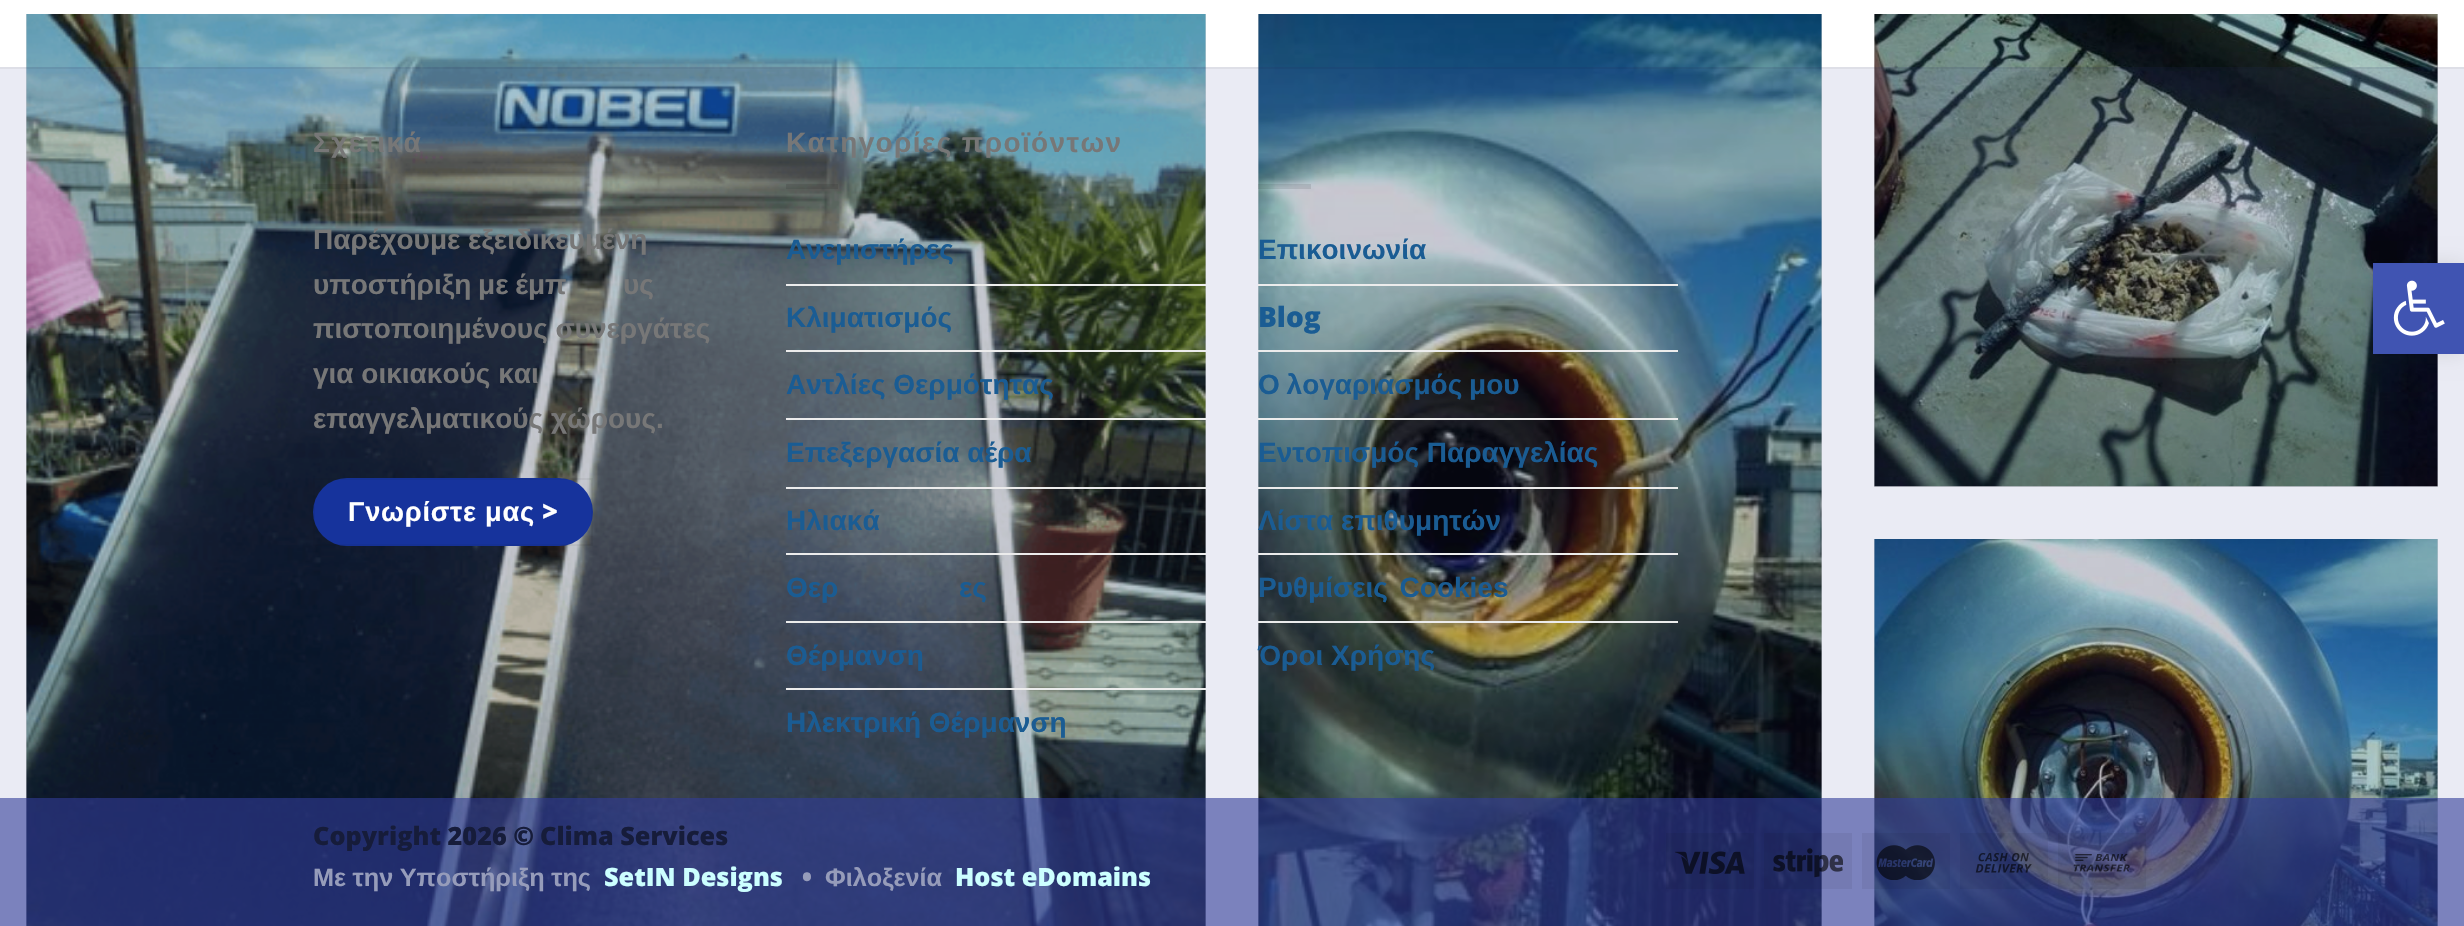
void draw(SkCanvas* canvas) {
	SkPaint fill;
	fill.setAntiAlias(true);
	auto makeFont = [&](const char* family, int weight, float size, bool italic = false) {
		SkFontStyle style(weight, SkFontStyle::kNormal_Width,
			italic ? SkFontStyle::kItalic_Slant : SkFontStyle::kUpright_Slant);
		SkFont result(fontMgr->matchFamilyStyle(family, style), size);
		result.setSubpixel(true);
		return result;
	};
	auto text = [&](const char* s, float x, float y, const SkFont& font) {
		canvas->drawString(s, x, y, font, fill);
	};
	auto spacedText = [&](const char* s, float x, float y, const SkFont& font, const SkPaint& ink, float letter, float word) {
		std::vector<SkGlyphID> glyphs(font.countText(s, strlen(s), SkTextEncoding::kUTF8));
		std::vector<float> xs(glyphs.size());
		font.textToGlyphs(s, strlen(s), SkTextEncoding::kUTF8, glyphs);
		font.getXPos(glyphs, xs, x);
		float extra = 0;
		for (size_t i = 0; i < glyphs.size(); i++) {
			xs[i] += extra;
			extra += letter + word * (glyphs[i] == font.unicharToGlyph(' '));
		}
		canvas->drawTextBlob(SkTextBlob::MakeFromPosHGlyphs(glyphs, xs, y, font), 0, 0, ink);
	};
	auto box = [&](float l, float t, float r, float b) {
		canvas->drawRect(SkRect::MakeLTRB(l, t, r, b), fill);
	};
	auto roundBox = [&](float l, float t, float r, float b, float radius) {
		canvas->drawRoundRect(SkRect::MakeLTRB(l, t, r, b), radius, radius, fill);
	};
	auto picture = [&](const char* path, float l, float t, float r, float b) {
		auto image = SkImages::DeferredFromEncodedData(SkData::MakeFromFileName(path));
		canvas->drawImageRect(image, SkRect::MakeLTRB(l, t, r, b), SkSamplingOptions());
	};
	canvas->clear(0xFFFFFFFF);
	fill.setColor(0xFFD9D9D9);
	box(1874, 539, 2438, 926);
	box(1874, 14, 2438, 487);
	box(1258, 14, 1822, 926);
	box(26, 14, 1206, 926);
	picture("image0.png", 26, 14, 1206, 926);
	picture("image1.png", 1258, 14, 1822, 926);
	picture("image2.png", 1874, 14, 2438, 487);
	picture("image3.png", 1874, 539, 2438, 926);
	fill.setColor(0x1A313B97);
	box(0, 67, 2464, 798);
	fill.setColor(0x0D000000);
	box(0, 67, 2464, 69);
	fill.setColor(0x1A000000);
	box(313, 184, 366, 189);
	fill.setColor(0xFF16339C);
	roundBox(313, 478, 593, 546, 34);
	fill.setStyle(SkPaint::kStroke_Style);
	fill.setStrokeWidth(2);
	fill.setColor(0x0D000000);
	canvas->drawRect(SkRect::MakeLTRB(314, 479, 592, 545), fill);
	fill.setStyle(SkPaint::kFill_Style);
	fill.setColor(0x1A000000);
	box(786, 184, 838, 189);
	fill.setColor(0xFFECECEC);
	box(786, 284, 1206, 286);
	box(786, 350, 1206, 352);
	box(786, 418, 1206, 420);
	box(786, 487, 1206, 489);
	box(786, 553, 1206, 555);
	box(786, 621, 1206, 623);
	box(786, 688, 1206, 690);
	fill.setColor(0x1A000000);
	box(1258, 184, 1311, 189);
	fill.setColor(0xFFECECEC);
	box(1258, 284, 1678, 286);
	box(1258, 350, 1678, 352);
	box(1258, 418, 1678, 420);
	box(1258, 487, 1678, 489);
	box(1258, 553, 1678, 555);
	box(1258, 621, 1678, 623);
	fill.setColor(0xA3313B97);
	box(0, 798, 2464, 926);
	fill.setColor(0x0F000000);
	box(1666, 833, 1754, 889);
	picture("image4.png", 1675, 851, 1745, 874);
	box(1764, 833, 1852, 889);
	picture("image5.png", 1773, 848, 1843, 878);
	box(1862, 833, 1950, 889);
	picture("image6.png", 1876, 845, 1935, 880);
	box(1960, 833, 2048, 889);
	picture("image7.png", 1975, 853, 2032, 873);
	box(2058, 833, 2146, 889);
	picture("image8.png", 2073, 854, 2130, 872);
	fill.setColor(0x1A000000);
	fill.setMaskFilter(SkMaskFilter::MakeBlur(kNormal_SkBlurStyle, 9));
	canvas->drawRect(SkRect::MakeLTRB(2373, 263, 2464, 354), fill);
	fill.setMaskFilter(nullptr);
	fill.setColor(0xFF4054B2);
	box(2373, 263, 2464, 354);
	picture("image9.png", 2393, 280, 2445, 336);
	auto font1 = makeFont("Liberation Sans", 700, 28);
	fill.setColor(0xFF777777);
	spacedText("Σχετικά", 313, 152, font1, fill, 1.4f, 0);
	text("Παρέχουμε εξειδικευμένη", 313, 249, font1);
	spacedText("υποστήριξη με έμπ", 313, 294, font1, fill, 0, -1);
	spacedText("υς", 623, 294, font1, fill, 0, -1);
	text("πιστοποιημένους συνεργάτες", 313, 338, font1);
	text("για οικιακούς και", 313, 383, font1);
	text("επαγγελματικούς χώρους.", 313, 428, font1);
	auto font2 = makeFont("Liberation Sans", 700, 27.25f);
	fill.setColor(0xFFFFFFFF);
	spacedText("Γνωρίστε μας", 348, 521, font2, fill, 0.75f, 0);
	auto font3 = makeFont("Open Sans", 800, 27.25f);
	spacedText(">", 542, 521, font3, fill, 0.75f, 0);
	fill.setColor(0xFF777777);
	spacedText("Κατηγορίες προϊόντων", 786, 152, font1, fill, 1.4f, 0);
	fill.setColor(0xFF1A5C93);
	text("Ανεμιστήρες", 786, 259, font1);
	text("Κλιματισμός", 786, 327, font1);
	text("Αντλίες Θερμότητας", 786, 394, font1);
	text("Επεξεργασία αέρα", 786, 462, font1);
	text("Ηλιακά", 786, 530, font1);
	text("Θερ", 786, 597, font1);
	text("ες", 959, 597, font1);
	text("Θέρμανση", 786, 665, font1);
	text("Ηλεκτρική Θέρμανση", 786, 732, font1);
	text("Επικοινωνία", 1258, 259, font1);
	auto font4 = makeFont("Open Sans", 800, 28);
	text("Blog", 1258, 327, font4);
	spacedText("Ο λογαριασμός μου", 1258, 394, font1, fill, 0, -1);
	text("Εντοπισμός Παραγγελίας", 1258, 462, font1);
	text("Λίστα επιθυμητών", 1258, 530, font1);
	spacedText("Ρυθμίσεις Cookies", 1258, 597, font1, fill, 0, 4);
	text("Όροι Χρήσης", 1258, 665, font1);
	auto font5 = makeFont("Open Sans", 800, 25.25f);
	fill.setColor(0xFF161C3A);
	text("Copyright 2026 ©", 313, 845, font5);
	text("Clima Services", 540, 845, font5);
	auto font6 = makeFont("Liberation Sans", 700, 25.25f);
	fill.setColor(0xFF969CBA);
	spacedText("Με την Υποστήριξη της", 313, 886, font6, fill, 0, -0.5f);
	fill.setColor(0xFFCCFFFF);
	text("SetIN Designs", 604, 886, font5);
	fill.setColor(0xFF969CBA);
	text("•", 802, 886, font5);
	text("Φιλοξενία", 825, 886, font6);
	fill.setColor(0xFFCCFFFF);
	text("Host eDomains", 955, 886, font5);
}
